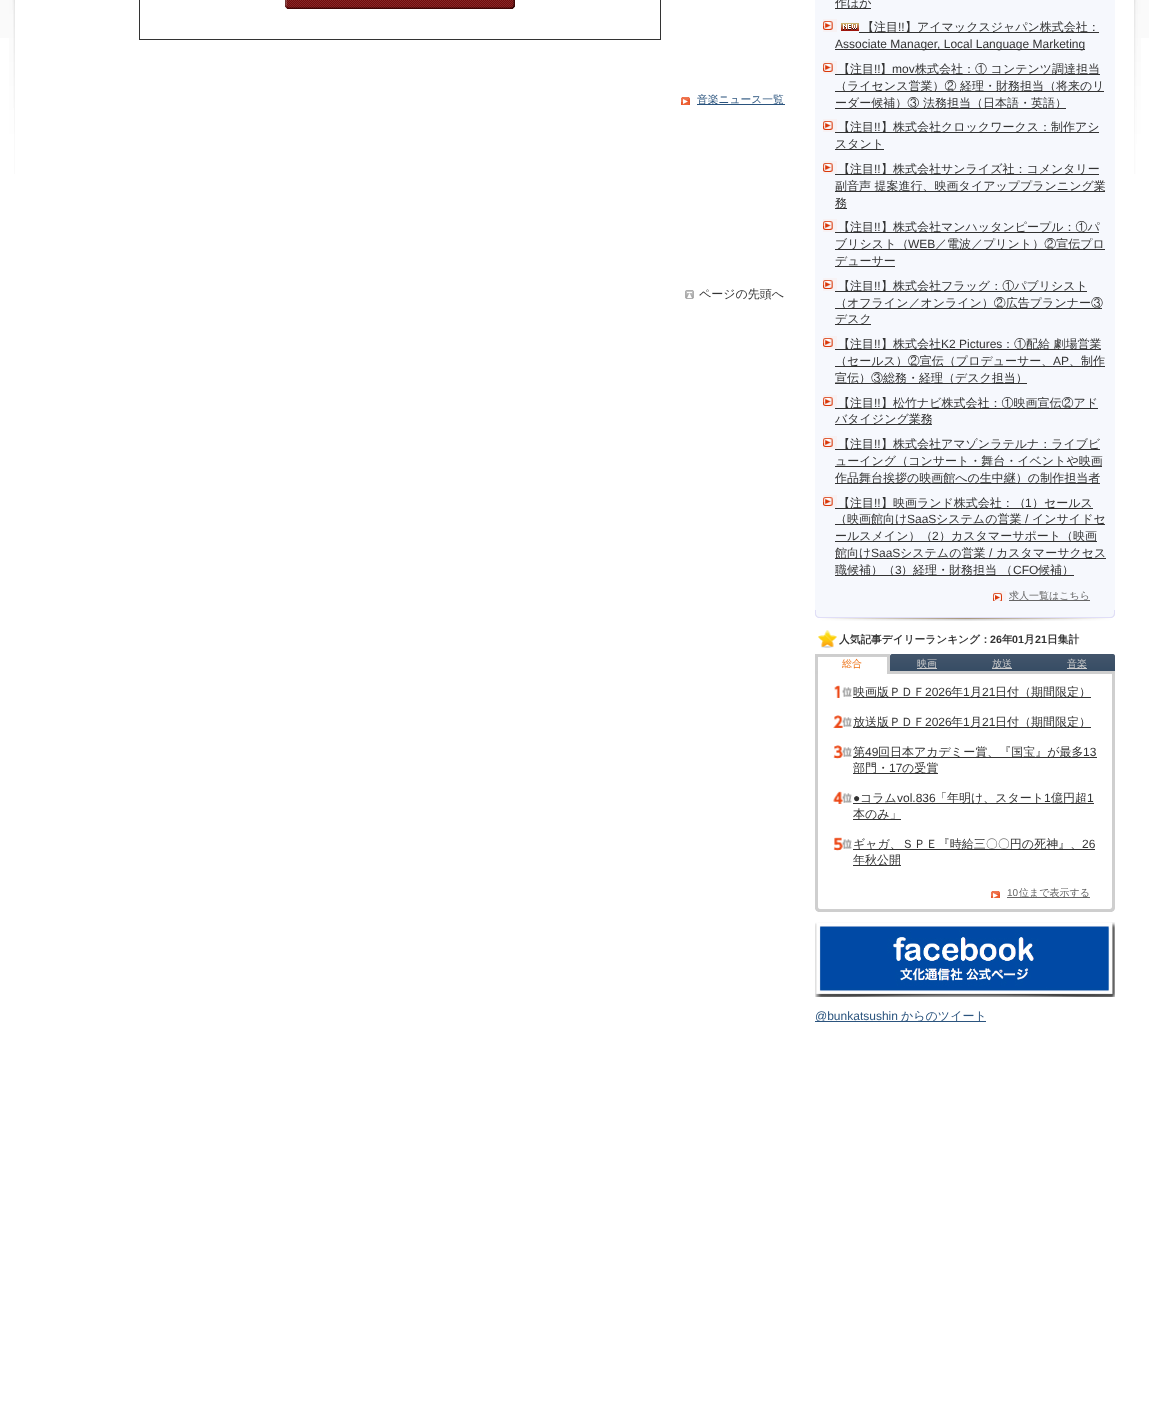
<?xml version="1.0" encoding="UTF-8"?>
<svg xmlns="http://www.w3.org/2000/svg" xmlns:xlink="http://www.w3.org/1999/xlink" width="1149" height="1419">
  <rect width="100%" height="100%" fill="#ffffff" />
  <rect width="1149" height="38" fill="#fafafa" />
  <rect x="9" width="1132" height="38" fill="#ffffff" />
  <image x="9" y="0" width="6" height="174" xlink:href="image1.png" />
  <rect x="139.5" y="-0.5" width="521" height="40" fill="none" stroke="#333333" />
  <image x="285" y="0" width="230" height="9" xlink:href="image2.png" />
  <image x="681" y="97" width="9" height="8" xlink:href="image3.png" />
  <rect x="697" y="104" width="88" height="1" fill="#2b547e" />
  <image x="685" y="290" width="9" height="9" xlink:href="image4.png" />
  <rect x="815" width="300" height="610" fill="#f6f8fd" />
  <rect x="835" y="8" width="36" height="1" fill="#333333" />
  <image x="823" y="19" width="14" height="13" xlink:href="image5.png" />
  <image x="841" y="23" width="18" height="8" xlink:href="image6.png" />
  <rect x="859" y="32" width="240" height="1" fill="#333333" />
  <rect x="835" y="49" width="250" height="1" fill="#333333" />
  <image x="823" y="61" width="14" height="13" xlink:href="image5.png" />
  <rect x="835" y="74" width="265" height="1" fill="#333333" />
  <rect x="835" y="91" width="269" height="1" fill="#333333" />
  <rect x="835" y="108" width="231" height="1" fill="#333333" />
  <image x="823" y="119" width="14" height="13" xlink:href="image5.png" />
  <rect x="835" y="132" width="264" height="1" fill="#333333" />
  <rect x="835" y="149" width="49" height="1" fill="#333333" />
  <image x="823" y="161" width="14" height="13" xlink:href="image5.png" />
  <rect x="835" y="174" width="264" height="1" fill="#333333" />
  <rect x="835" y="191" width="270" height="1" fill="#333333" />
  <rect x="835" y="208" width="12" height="1" fill="#333333" />
  <image x="823" y="219" width="14" height="13" xlink:href="image5.png" />
  <rect x="835" y="232" width="264" height="1" fill="#333333" />
  <rect x="835" y="249" width="270" height="1" fill="#333333" />
  <rect x="835" y="266" width="60" height="1" fill="#333333" />
  <image x="823" y="278" width="14" height="13" xlink:href="image5.png" />
  <rect x="835" y="291" width="252" height="1" fill="#333333" />
  <rect x="835" y="308" width="267" height="1" fill="#333333" />
  <rect x="835" y="324" width="36" height="1" fill="#333333" />
  <image x="823" y="336" width="14" height="13" xlink:href="image5.png" />
  <rect x="835" y="349" width="266" height="1" fill="#333333" />
  <rect x="835" y="366" width="270" height="1" fill="#333333" />
  <rect x="835" y="383" width="192" height="1" fill="#333333" />
  <image x="823" y="395" width="14" height="13" xlink:href="image5.png" />
  <rect x="835" y="408" width="263" height="1" fill="#333333" />
  <rect x="835" y="424" width="97" height="1" fill="#333333" />
  <image x="823" y="436" width="14" height="13" xlink:href="image5.png" />
  <rect x="835" y="449" width="265" height="1" fill="#333333" />
  <rect x="835" y="466" width="267" height="1" fill="#333333" />
  <rect x="835" y="483" width="265" height="1" fill="#333333" />
  <image x="823" y="495" width="14" height="13" xlink:href="image5.png" />
  <rect x="835" y="508" width="258" height="1" fill="#333333" />
  <rect x="835" y="524" width="270" height="1" fill="#333333" />
  <rect x="835" y="541" width="262" height="1" fill="#333333" />
  <rect x="835" y="558" width="271" height="1" fill="#333333" />
  <rect x="835" y="575" width="239" height="1" fill="#333333" />
  <image x="993" y="591" width="13" height="10" xlink:href="image7.png" />
  <rect x="1009" y="600" width="81" height="1" fill="#666666" />
  <image x="815" y="610" width="300" height="11" xlink:href="image8.png" />
  <image x="818" y="630" width="19" height="18" xlink:href="image9.png" />
  <image x="815" y="654" width="75" height="20" xlink:href="image10.png" />
  <image x="890" y="654" width="75" height="20" xlink:href="image11.png" />
  <rect x="917" y="668" width="20" height="1" fill="#cccccc" />
  <image x="965" y="654" width="75" height="20" xlink:href="image12.png" />
  <rect x="992" y="668" width="20" height="1" fill="#cccccc" />
  <image x="1040" y="654" width="75" height="20" xlink:href="image13.png" />
  <rect x="1067" y="668" width="20" height="1" fill="#cccccc" />
  <image x="815" y="674" width="300" height="238" xlink:href="image14.png" />
  <image x="834" y="685" width="18" height="13" xlink:href="image15.png" />
  <rect x="853" y="697" width="238" height="1" fill="#333333" />
  <image x="833" y="715" width="19" height="13" xlink:href="image16.png" />
  <rect x="853" y="727" width="238" height="1" fill="#333333" />
  <image x="833" y="745" width="19" height="14" xlink:href="image17.png" />
  <rect x="853" y="757" width="244" height="1" fill="#333333" />
  <rect x="853" y="773" width="85" height="1" fill="#333333" />
  <image x="833" y="791" width="19" height="13" xlink:href="image18.png" />
  <rect x="853" y="803" width="241" height="1" fill="#333333" />
  <rect x="853" y="819" width="48" height="1" fill="#333333" />
  <image x="833" y="837" width="19" height="14" xlink:href="image19.png" />
  <rect x="853" y="849" width="242" height="1" fill="#333333" />
  <rect x="853" y="865" width="48" height="1" fill="#333333" />
  <image x="991" y="891" width="9" height="7" xlink:href="image20.png" />
  <rect x="1007" y="897" width="83" height="1" fill="#666666" />
  <image x="815" y="922" width="300" height="75" xlink:href="image21.png" />
  <rect x="815" y="1021" width="171" height="1" fill="#2b547e" />
  <image x="1134" y="0" width="7" height="174" xlink:href="image22.png" />
  <text x="697" y="103" style="font-family: WenQuanYi Zen Hei; font-size: 10.75px; font-weight: 500; fill: #2b547e">音楽ニュース一覧</text>
  <text x="699" y="298" style="font-family: WenQuanYi Zen Hei; font-size: 12px; font-weight: 500; fill: #333333">ページの先頭へ</text>
  <text x="835" y="7" style="font-family: WenQuanYi Zen Hei; font-size: 12px; font-weight: 500; fill: #333333">作ほか</text>
  <text x="862" y="31" style="font-family: WenQuanYi Zen Hei; font-size: 12px; font-weight: 500; fill: #333333">【注目</text>
  <text x="898" y="31" style="font-family: Liberation Sans; font-size: 12px; fill: #333333">!!</text>
  <text x="905" y="31" style="font-family: WenQuanYi Zen Hei; font-size: 12px; font-weight: 500; fill: #333333">】アイマックスジャパン株式会社：</text>
  <text x="835" y="48" style="font-family: Liberation Sans; font-size: 12px; fill: #333333">Associate Manager, Local Language Marketing</text>
  <text x="838" y="73" style="font-family: WenQuanYi Zen Hei; font-size: 12px; font-weight: 500; fill: #333333">【注目</text>
  <text x="874" y="73" style="font-family: Liberation Sans; font-size: 12px; fill: #333333">!!</text>
  <text x="880" y="73" style="font-family: WenQuanYi Zen Hei; font-size: 12px; font-weight: 500; fill: #333333">】</text>
  <text x="892" y="73" style="font-family: Liberation Sans; font-size: 12px; fill: #333333">mov</text>
  <text x="915" y="73" style="font-family: WenQuanYi Zen Hei; font-size: 12px; font-weight: 500; fill: #333333">株式会社：① コンテンツ調達担当</text>
  <text x="835" y="90" style="font-family: WenQuanYi Zen Hei; font-size: 12px; font-weight: 500; fill: #333333">（ライセンス営業）② 経理・財務担当（将来のリ</text>
  <text x="835" y="107" style="font-family: WenQuanYi Zen Hei; font-size: 12px; font-weight: 500; fill: #333333">ーダー候補）③ 法務担当（日本語・英語）</text>
  <text x="838" y="131" style="font-family: WenQuanYi Zen Hei; font-size: 12px; font-weight: 500; fill: #333333">【注目</text>
  <text x="874" y="131" style="font-family: Liberation Sans; font-size: 12px; fill: #333333">!!</text>
  <text x="881" y="131" style="font-family: WenQuanYi Zen Hei; font-size: 12px; font-weight: 500; fill: #333333">】株式会社クロックワークス：制作アシ</text>
  <text x="835" y="148" style="font-family: WenQuanYi Zen Hei; font-size: 12px; font-weight: 500; fill: #333333">スタント</text>
  <text x="838" y="173" style="font-family: WenQuanYi Zen Hei; font-size: 12px; font-weight: 500; fill: #333333">【注目</text>
  <text x="874" y="173" style="font-family: Liberation Sans; font-size: 12px; fill: #333333">!!</text>
  <text x="881" y="173" style="font-family: WenQuanYi Zen Hei; font-size: 12px; font-weight: 500; fill: #333333">】株式会社サンライズ社：コメンタリー</text>
  <text x="835" y="190" style="font-family: WenQuanYi Zen Hei; font-size: 12px; font-weight: 500; fill: #333333">副音声 提案進行、映画タイアッププランニング業</text>
  <text x="835" y="207" style="font-family: WenQuanYi Zen Hei; font-size: 12px; font-weight: 500; fill: #333333">務</text>
  <text x="838" y="231" style="font-family: WenQuanYi Zen Hei; font-size: 12px; font-weight: 500; fill: #333333">【注目</text>
  <text x="874" y="231" style="font-family: Liberation Sans; font-size: 12px; fill: #333333">!!</text>
  <text x="881" y="231" style="font-family: WenQuanYi Zen Hei; font-size: 12px; font-weight: 500; fill: #333333">】株式会社マンハッタンピープル：①パ</text>
  <text x="835" y="248" style="font-family: WenQuanYi Zen Hei; font-size: 12px; font-weight: 500; fill: #333333">ブリシスト（</text>
  <text x="908" y="248" style="font-family: Liberation Sans; font-size: 12px; fill: #333333">WEB</text>
  <text x="935" y="248" style="font-family: WenQuanYi Zen Hei; font-size: 12px; font-weight: 500; fill: #333333">／電波／プリント）②宣伝プロ</text>
  <text x="835" y="265" style="font-family: WenQuanYi Zen Hei; font-size: 12px; font-weight: 500; fill: #333333">デューサー</text>
  <text x="838" y="290" style="font-family: WenQuanYi Zen Hei; font-size: 12px; font-weight: 500; fill: #333333">【注目</text>
  <text x="874" y="290" style="font-family: Liberation Sans; font-size: 12px; fill: #333333">!!</text>
  <text x="881" y="290" style="font-family: WenQuanYi Zen Hei; font-size: 12px; font-weight: 500; fill: #333333">】株式会社フラッグ：①パブリシスト</text>
  <text x="835" y="307" style="font-family: WenQuanYi Zen Hei; font-size: 12px; font-weight: 500; fill: #333333">（オフライン／オンライン）②広告プランナー③</text>
  <text x="835" y="323" style="font-family: WenQuanYi Zen Hei; font-size: 12px; font-weight: 500; fill: #333333">デスク</text>
  <text x="838" y="348" style="font-family: WenQuanYi Zen Hei; font-size: 12px; font-weight: 500; fill: #333333">【注目</text>
  <text x="874" y="348" style="font-family: Liberation Sans; font-size: 12px; fill: #333333">!!</text>
  <text x="881" y="348" style="font-family: WenQuanYi Zen Hei; font-size: 12px; font-weight: 500; fill: #333333">】株式会社</text>
  <text x="941" y="348" style="font-family: Liberation Sans; font-size: 12px; fill: #333333">K2 Pictures</text>
  <text x="1002" y="348" style="font-family: WenQuanYi Zen Hei; font-size: 12px; font-weight: 500; fill: #333333">：①配給 劇場営業</text>
  <text x="835" y="365" style="font-family: WenQuanYi Zen Hei; font-size: 12px; font-weight: 500; fill: #333333">（セールス）②宣伝（プロデューサー、</text>
  <text x="1053" y="365" style="font-family: Liberation Sans; font-size: 12px; fill: #333333">AP</text>
  <text x="1069" y="365" style="font-family: WenQuanYi Zen Hei; font-size: 12px; font-weight: 500; fill: #333333">、制作</text>
  <text x="835" y="382" style="font-family: WenQuanYi Zen Hei; font-size: 12px; font-weight: 500; fill: #333333">宣伝）③総務・経理（デスク担当）</text>
  <text x="838" y="407" style="font-family: WenQuanYi Zen Hei; font-size: 12px; font-weight: 500; fill: #333333">【注目</text>
  <text x="874" y="407" style="font-family: Liberation Sans; font-size: 12px; fill: #333333">!!</text>
  <text x="881" y="407" style="font-family: WenQuanYi Zen Hei; font-size: 12px; font-weight: 500; fill: #333333">】松竹ナビ株式会社：①映画宣伝②アド</text>
  <text x="835" y="423" style="font-family: WenQuanYi Zen Hei; font-size: 12px; font-weight: 500; fill: #333333">バタイジング業務</text>
  <text x="838" y="448" style="font-family: WenQuanYi Zen Hei; font-size: 12px; font-weight: 500; fill: #333333">【注目</text>
  <text x="874" y="448" style="font-family: Liberation Sans; font-size: 12px; fill: #333333">!!</text>
  <text x="881" y="448" style="font-family: WenQuanYi Zen Hei; font-size: 12px; font-weight: 500; fill: #333333">】株式会社アマゾンラテルナ：ライブビ</text>
  <text x="835" y="465" style="font-family: WenQuanYi Zen Hei; font-size: 12px; font-weight: 500; fill: #333333">ューイング（コンサート・舞台・イベントや映画</text>
  <text x="835" y="482" style="font-family: WenQuanYi Zen Hei; font-size: 12px; font-weight: 500; fill: #333333">作品舞台挨拶の映画館への生中継）の制作担当者</text>
  <text x="838" y="507" style="font-family: WenQuanYi Zen Hei; font-size: 12px; font-weight: 500; fill: #333333">【注目</text>
  <text x="874" y="507" style="font-family: Liberation Sans; font-size: 12px; fill: #333333">!!</text>
  <text x="881" y="507" style="font-family: WenQuanYi Zen Hei; font-size: 12px; font-weight: 500; fill: #333333">】映画ランド株式会社：（</text>
  <text x="1025" y="507" style="font-family: Liberation Sans; font-size: 12px; fill: #333333">1</text>
  <text x="1032" y="507" style="font-family: WenQuanYi Zen Hei; font-size: 12px; font-weight: 500; fill: #333333">）セールス</text>
  <text x="835" y="523" style="font-family: WenQuanYi Zen Hei; font-size: 12px; font-weight: 500; fill: #333333">（映画館向け</text>
  <text x="907" y="523" style="font-family: Liberation Sans; font-size: 12px; fill: #333333">SaaS</text>
  <text x="936" y="523" style="font-family: WenQuanYi Zen Hei; font-size: 12px; font-weight: 500; fill: #333333">システムの営業</text>
  <text x="1025" y="523" style="font-family: Liberation Sans; font-size: 12px; fill: #333333">/</text>
  <text x="1032" y="523" style="font-family: WenQuanYi Zen Hei; font-size: 12px; font-weight: 500; fill: #333333">インサイドセ</text>
  <text x="835" y="540" style="font-family: WenQuanYi Zen Hei; font-size: 12px; font-weight: 500; fill: #333333">ールスメイン）（</text>
  <text x="932" y="540" style="font-family: Liberation Sans; font-size: 12px; fill: #333333">2</text>
  <text x="939" y="540" style="font-family: WenQuanYi Zen Hei; font-size: 12px; font-weight: 500; fill: #333333">）カスタマーサポート（映画</text>
  <text x="835" y="557" style="font-family: WenQuanYi Zen Hei; font-size: 12px; font-weight: 500; fill: #333333">館向け</text>
  <text x="871" y="557" style="font-family: Liberation Sans; font-size: 12px; fill: #333333">SaaS</text>
  <text x="900" y="557" style="font-family: WenQuanYi Zen Hei; font-size: 12px; font-weight: 500; fill: #333333">システムの営業</text>
  <text x="989" y="557" style="font-family: Liberation Sans; font-size: 12px; fill: #333333">/</text>
  <text x="996" y="557" style="font-family: WenQuanYi Zen Hei; font-size: 12px; font-weight: 500; fill: #333333">カスタマーサクセス</text>
  <text x="835" y="574" style="font-family: WenQuanYi Zen Hei; font-size: 12px; font-weight: 500; fill: #333333">職候補）（</text>
  <text x="895" y="574" style="font-family: Liberation Sans; font-size: 12px; fill: #333333">3</text>
  <text x="901" y="574" style="font-family: WenQuanYi Zen Hei; font-size: 12px; font-weight: 500; fill: #333333">）経理・財務担当 （</text>
  <text x="1013" y="574" style="font-family: Liberation Sans; font-size: 12px; fill: #333333">CFO</text>
  <text x="1038" y="574" style="font-family: WenQuanYi Zen Hei; font-size: 12px; font-weight: 500; fill: #333333">候補）</text>
  <text x="1009" y="599" style="font-family: WenQuanYi Zen Hei; font-size: 10px; font-weight: 500; fill: #666666">求人一覧はこちら</text>
  <text x="839" y="643" style="font-family: WenQuanYi Zen Hei; font-size: 10.7px; font-weight: bold; fill: #333333">人気記事デイリーランキング：</text>
  <text x="990" y="643" style="font-family: Liberation Sans; font-size: 10.7px; font-weight: bold; fill: #333333">26</text>
  <text x="1002" y="643" style="font-family: WenQuanYi Zen Hei; font-size: 10.7px; font-weight: bold; fill: #333333">年</text>
  <text x="1012" y="643" style="font-family: Liberation Sans; font-size: 10.7px; font-weight: bold; fill: #333333">01</text>
  <text x="1024" y="643" style="font-family: WenQuanYi Zen Hei; font-size: 10.7px; font-weight: bold; fill: #333333">月</text>
  <text x="1035" y="643" style="font-family: Liberation Sans; font-size: 10.7px; font-weight: bold; fill: #333333">21</text>
  <text x="1047" y="643" style="font-family: WenQuanYi Zen Hei; font-size: 10.7px; font-weight: bold; fill: #333333">日集計</text>
  <text x="842" y="667" style="font-family: WenQuanYi Zen Hei; font-size: 10px; font-weight: 500; fill: #ed7216">総合</text>
  <text x="917" y="667" style="font-family: WenQuanYi Zen Hei; font-size: 10px; font-weight: 500; fill: #cccccc">映画</text>
  <text x="992" y="667" style="font-family: WenQuanYi Zen Hei; font-size: 10px; font-weight: 500; fill: #cccccc">放送</text>
  <text x="1067" y="667" style="font-family: WenQuanYi Zen Hei; font-size: 10px; font-weight: 500; fill: #cccccc">音楽</text>
  <text x="853" y="696" style="font-family: WenQuanYi Zen Hei; font-size: 12px; font-weight: 500; fill: #333333">映画版ＰＤＦ</text>
  <text x="925" y="696" style="font-family: Liberation Sans; font-size: 12px; fill: #333333">2026</text>
  <text x="951" y="696" style="font-family: WenQuanYi Zen Hei; font-size: 12px; font-weight: 500; fill: #333333">年</text>
  <text x="963" y="696" style="font-family: Liberation Sans; font-size: 12px; fill: #333333">1</text>
  <text x="970" y="696" style="font-family: WenQuanYi Zen Hei; font-size: 12px; font-weight: 500; fill: #333333">月</text>
  <text x="982" y="696" style="font-family: Liberation Sans; font-size: 12px; fill: #333333">21</text>
  <text x="995" y="696" style="font-family: WenQuanYi Zen Hei; font-size: 12px; font-weight: 500; fill: #333333">日付（期間限定）</text>
  <text x="853" y="726" style="font-family: WenQuanYi Zen Hei; font-size: 12px; font-weight: 500; fill: #333333">放送版ＰＤＦ</text>
  <text x="925" y="726" style="font-family: Liberation Sans; font-size: 12px; fill: #333333">2026</text>
  <text x="951" y="726" style="font-family: WenQuanYi Zen Hei; font-size: 12px; font-weight: 500; fill: #333333">年</text>
  <text x="963" y="726" style="font-family: Liberation Sans; font-size: 12px; fill: #333333">1</text>
  <text x="970" y="726" style="font-family: WenQuanYi Zen Hei; font-size: 12px; font-weight: 500; fill: #333333">月</text>
  <text x="982" y="726" style="font-family: Liberation Sans; font-size: 12px; fill: #333333">21</text>
  <text x="995" y="726" style="font-family: WenQuanYi Zen Hei; font-size: 12px; font-weight: 500; fill: #333333">日付（期間限定）</text>
  <text x="853" y="756" style="font-family: WenQuanYi Zen Hei; font-size: 12px; font-weight: 500; fill: #333333">第</text>
  <text x="865" y="756" style="font-family: Liberation Sans; font-size: 12px; fill: #333333">49</text>
  <text x="878" y="756" style="font-family: WenQuanYi Zen Hei; font-size: 12px; font-weight: 500; fill: #333333">回日本アカデミー賞、『国宝』が最多</text>
  <text x="1083" y="756" style="font-family: Liberation Sans; font-size: 12px; fill: #333333">13</text>
  <text x="853" y="772" style="font-family: WenQuanYi Zen Hei; font-size: 12px; font-weight: 500; fill: #333333">部門・</text>
  <text x="889" y="772" style="font-family: Liberation Sans; font-size: 12px; fill: #333333">17</text>
  <text x="902" y="772" style="font-family: WenQuanYi Zen Hei; font-size: 12px; font-weight: 500; fill: #333333">の受賞</text>
  <text x="853" y="802" style="font-family: Liberation Sans; font-size: 12px; fill: #333333">●</text>
  <text x="860" y="802" style="font-family: WenQuanYi Zen Hei; font-size: 12px; font-weight: 500; fill: #333333">コラム</text>
  <text x="897" y="802" style="font-family: Liberation Sans; font-size: 12px; fill: #333333">vol.836</text>
  <text x="935" y="802" style="font-family: WenQuanYi Zen Hei; font-size: 12px; font-weight: 500; fill: #333333">「年明け、スタート</text>
  <text x="1044" y="802" style="font-family: Liberation Sans; font-size: 12px; fill: #333333">1</text>
  <text x="1051" y="802" style="font-family: WenQuanYi Zen Hei; font-size: 12px; font-weight: 500; fill: #333333">億円超</text>
  <text x="1087" y="802" style="font-family: Liberation Sans; font-size: 12px; fill: #333333">1</text>
  <text x="853" y="818" style="font-family: WenQuanYi Zen Hei; font-size: 12px; font-weight: 500; fill: #333333">本のみ」</text>
  <text x="853" y="848" style="font-family: WenQuanYi Zen Hei; font-size: 12px; font-weight: 500; fill: #333333">ギャガ、ＳＰＥ『時給三〇〇円の死神』、</text>
  <text x="1082" y="848" style="font-family: Liberation Sans; font-size: 12px; fill: #333333">26</text>
  <text x="853" y="864" style="font-family: WenQuanYi Zen Hei; font-size: 12px; font-weight: 500; fill: #333333">年秋公開</text>
  <text x="1007" y="896" style="font-family: Liberation Sans; font-size: 10px; fill: #666666">10</text>
  <text x="1019" y="896" style="font-family: WenQuanYi Zen Hei; font-size: 10px; font-weight: 500; fill: #666666">位まで表示する</text>
  <text x="815" y="1020" style="font-family: Liberation Sans; font-size: 12px; fill: #2b547e">@bunkatsushin</text>
  <text x="901" y="1020" style="font-family: WenQuanYi Zen Hei; font-size: 12px; font-weight: 500; fill: #2b547e">からのツイート</text>
</svg>
